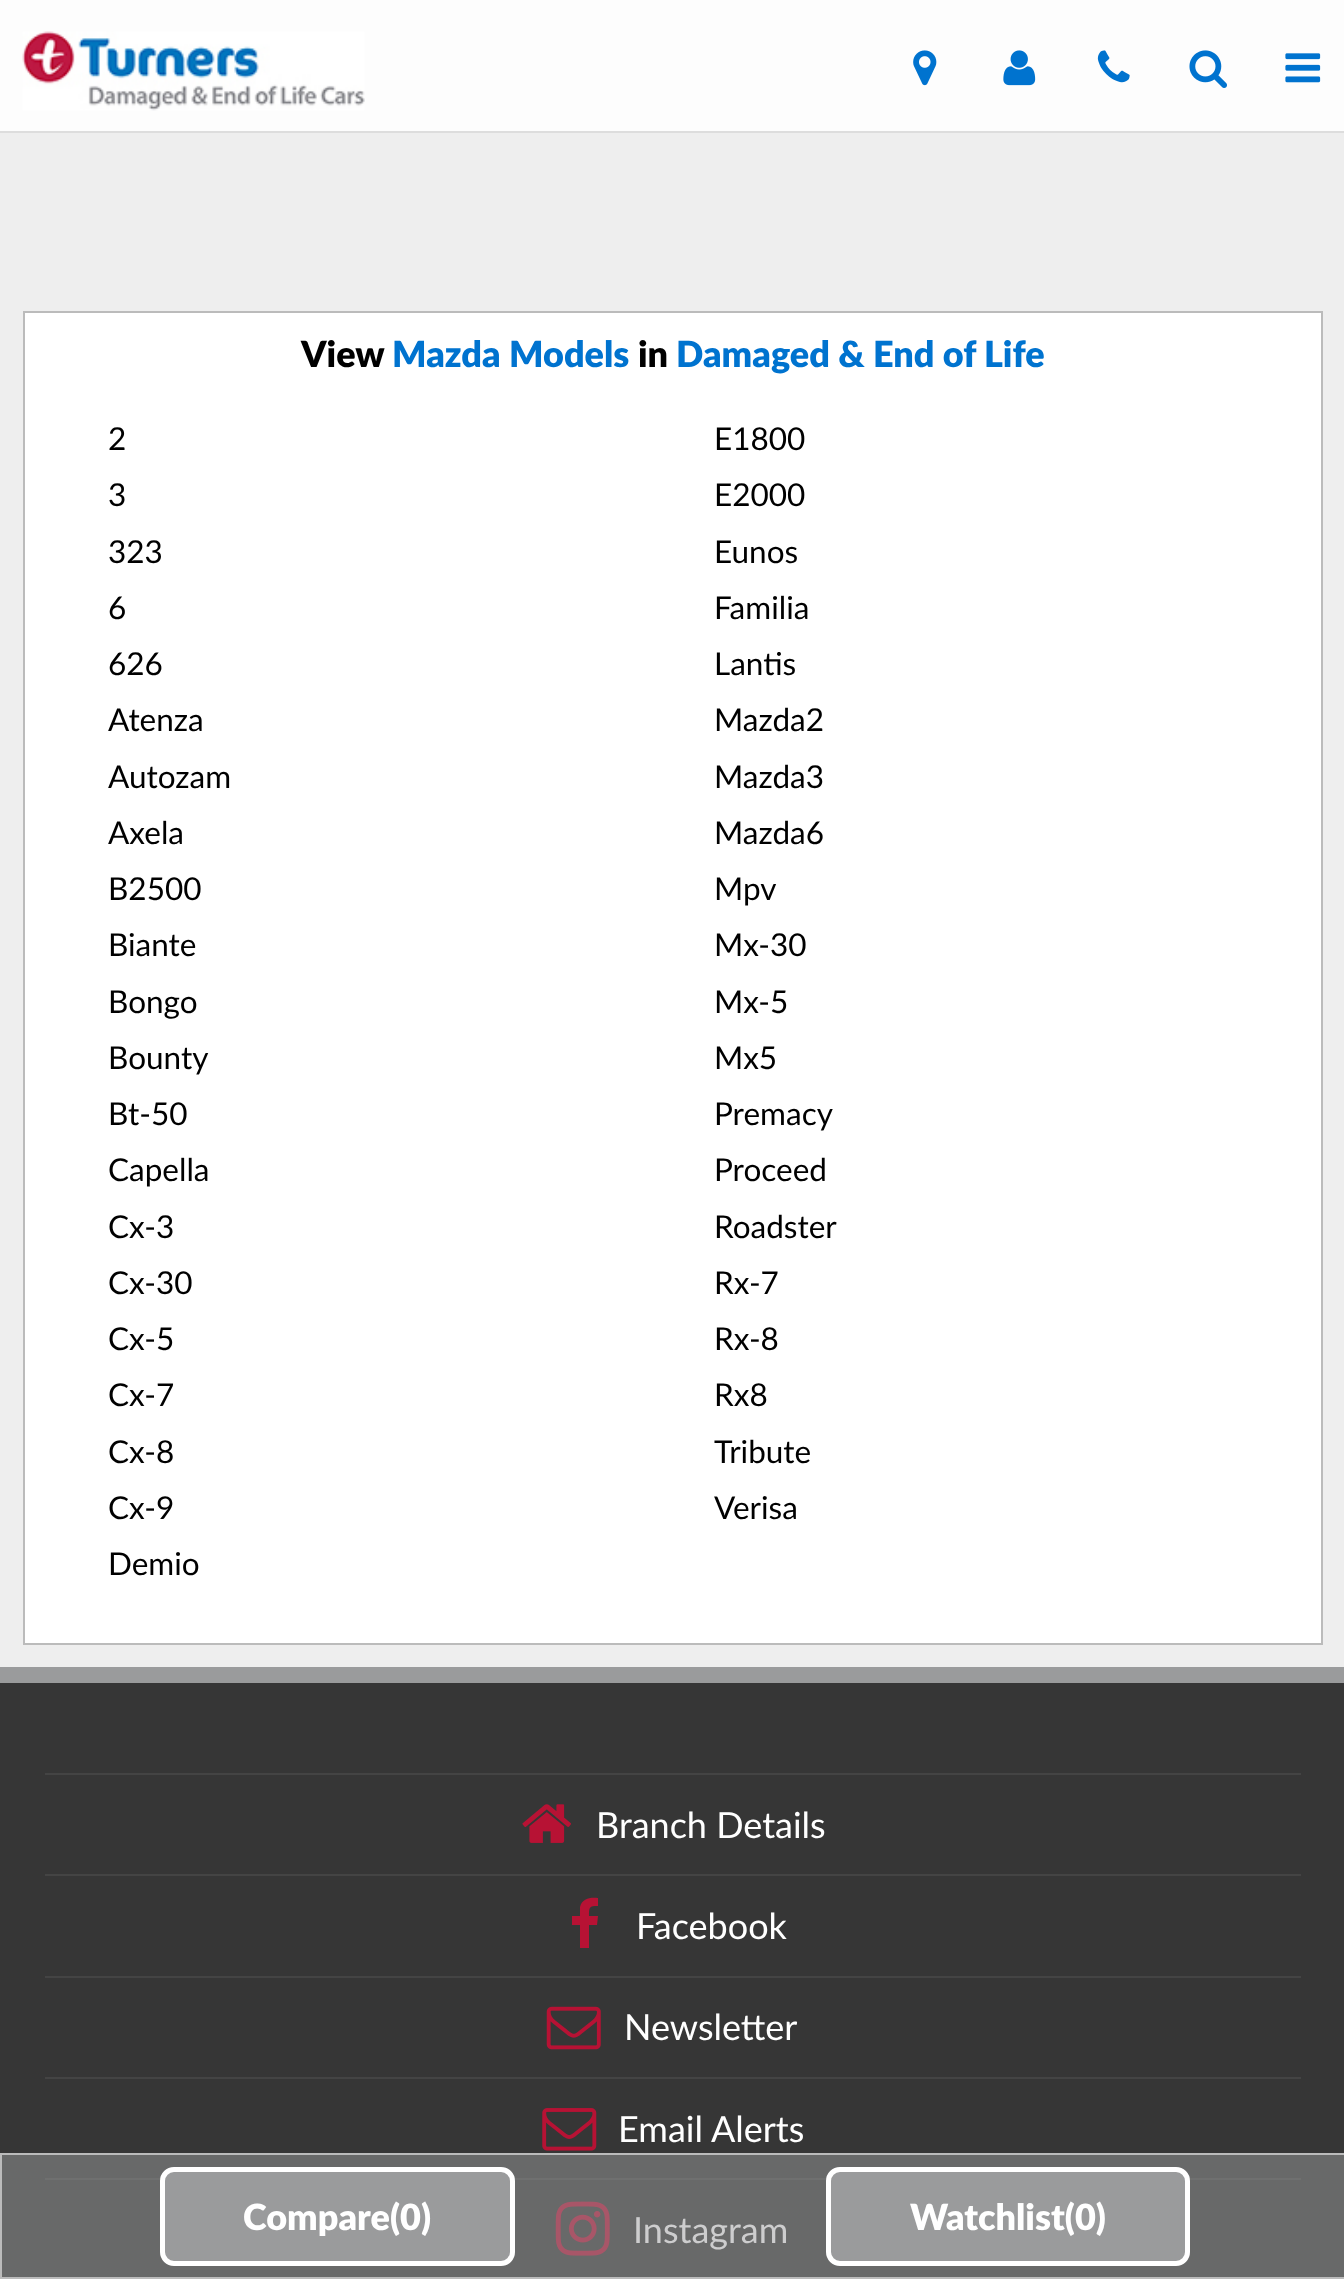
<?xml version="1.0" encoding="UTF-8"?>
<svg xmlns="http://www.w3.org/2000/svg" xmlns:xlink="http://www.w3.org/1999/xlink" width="1344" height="2279">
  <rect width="100%" height="100%" fill="#eeeeee" />
  <rect width="1344" height="131" fill="#fdfdfd" />
  <rect y="131" width="1344" height="2" fill="#dddddd" />
  <image x="22" y="31" width="343" height="80" xlink:href="image1.png" />
  <image x="913" y="50" width="24" height="36" xlink:href="image2.png" />
  <image x="1003" y="50" width="33" height="36" xlink:href="image3.png" />
  <image x="1097" y="50" width="33" height="33" xlink:href="image4.png" />
  <image x="1189" y="50" width="38" height="38" xlink:href="image5.png" />
  <image x="1285" y="53" width="36" height="30" xlink:href="image6.png" />
  <rect x="24" y="312" width="1298" height="1332" fill="#ffffff" stroke="#bbbbbb" stroke-width="2" />
  <rect x="2" y="2155" width="1342" height="122" fill="#686969" />
  <rect x="45" y="2178" width="1256" height="2" fill="#6f7070" />
  <image x="555" y="2201" width="55" height="55" xlink:href="image10.png" />
  <rect x="1" y="2154" width="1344" height="124" fill="none" stroke="#bbbbbb" stroke-width="2" />
  <rect x="162.5" y="2169.5" width="350" height="94" rx="11.5" fill="#9a9b9c" stroke="#ffffff" stroke-width="5" />
  <rect x="828.5" y="2169.5" width="359" height="94" rx="11.5" fill="#9a9b9c" stroke="#ffffff" stroke-width="5" />
  <rect y="1667" width="1344" height="16" fill="#9a9b9c" />
  <rect y="1683" width="1344" height="470" fill="#363636" />
  <rect x="45" y="1773" width="1256" height="2" fill="#444444" />
  <image x="522" y="1804" width="49" height="39" xlink:href="image7.png" />
  <rect x="45" y="1874" width="1256" height="2" fill="#444444" />
  <path d="M 598 1898 v 8 c -9 0 -9 1 -9 10 h 9 l -1 9 h -8 v 23 h -9 v -23 h -8 v -9 h 8 v -9 c 2 -9 11 -10 18 -9 z" fill="#b71234" />
  <rect x="45" y="1976" width="1256" height="2" fill="#444444" />
  <image x="546" y="2006" width="55" height="44" xlink:href="image8.png" />
  <rect x="45" y="2077" width="1256" height="2" fill="#444444" />
  <image x="542" y="2108" width="55" height="43" xlink:href="image9.png" />
  <text x="301" y="367" style="font-family: Lato; font-size: 36px; font-weight: 900; fill: #000000">View</text>
  <text x="392" y="367" style="font-family: Lato; font-size: 36px; font-weight: 900; fill: #0073cf">Mazda Models</text>
  <text x="638" y="367" style="font-family: Lato; font-size: 36px; font-weight: 900; fill: #000000">in</text>
  <text x="676" y="367" style="font-family: Lato; font-size: 36px; font-weight: 900; fill: #0073cf">Damaged &amp; End of Life</text>
  <text x="108" y="450" style="font-family: Lato; font-size: 31.5px; fill: #000000">2</text>
  <text x="714" y="450" style="font-family: Lato; font-size: 31.5px; fill: #000000">E1800</text>
  <text x="108" y="506" style="font-family: Lato; font-size: 31.5px; fill: #000000">3</text>
  <text x="714" y="506" style="font-family: Lato; font-size: 31.5px; fill: #000000">E2000</text>
  <text x="108" y="563" style="font-family: Lato; font-size: 31.5px; fill: #000000">323</text>
  <text x="714" y="563" style="font-family: Lato; font-size: 31.5px; fill: #000000">Eunos</text>
  <text x="108" y="619" style="font-family: Lato; font-size: 31.5px; fill: #000000">6</text>
  <text x="714" y="619" style="font-family: Lato; font-size: 31.5px; fill: #000000">Familia</text>
  <text x="108" y="675" style="font-family: Lato; font-size: 31.5px; fill: #000000">626</text>
  <text x="714" y="675" style="font-family: Lato; font-size: 31.5px; fill: #000000">Lantis</text>
  <text x="108" y="731" style="font-family: Lato; font-size: 31.5px; fill: #000000">Atenza</text>
  <text x="714" y="731" style="font-family: Lato; font-size: 31.5px; fill: #000000">Mazda2</text>
  <text x="108" y="788" style="font-family: Lato; font-size: 31.5px; fill: #000000">Autozam</text>
  <text x="714" y="788" style="font-family: Lato; font-size: 31.5px; fill: #000000">Mazda3</text>
  <text x="108" y="844" style="font-family: Lato; font-size: 31.5px; fill: #000000">Axela</text>
  <text x="714" y="844" style="font-family: Lato; font-size: 31.5px; fill: #000000">Mazda6</text>
  <text x="108" y="900" style="font-family: Lato; font-size: 31.5px; fill: #000000">B2500</text>
  <text x="714" y="900" style="font-family: Lato; font-size: 31.5px; fill: #000000">Mpv</text>
  <text x="108" y="956" style="font-family: Lato; font-size: 31.5px; fill: #000000">Biante</text>
  <text x="714" y="956" style="font-family: Lato; font-size: 31.5px; fill: #000000">Mx-30</text>
  <text x="108" y="1013" style="font-family: Lato; font-size: 31.5px; fill: #000000">Bongo</text>
  <text x="714" y="1013" style="font-family: Lato; font-size: 31.5px; fill: #000000">Mx-5</text>
  <text x="108" y="1069" style="font-family: Lato; font-size: 31.5px; fill: #000000">Bounty</text>
  <text x="714" y="1069" style="font-family: Lato; font-size: 31.5px; fill: #000000">Mx5</text>
  <text x="108" y="1125" style="font-family: Lato; font-size: 31.5px; fill: #000000">Bt-50</text>
  <text x="714" y="1125" style="font-family: Lato; font-size: 31.5px; fill: #000000">Premacy</text>
  <text x="108" y="1181" style="font-family: Lato; font-size: 31.5px; fill: #000000">Capella</text>
  <text x="714" y="1181" style="font-family: Lato; font-size: 31.5px; fill: #000000">Proceed</text>
  <text x="108" y="1238" style="font-family: Lato; font-size: 31.5px; fill: #000000">Cx-3</text>
  <text x="714" y="1238" style="font-family: Lato; font-size: 31.5px; fill: #000000">Roadster</text>
  <text x="108" y="1294" style="font-family: Lato; font-size: 31.5px; fill: #000000">Cx-30</text>
  <text x="714" y="1294" style="font-family: Lato; font-size: 31.5px; fill: #000000">Rx-7</text>
  <text x="108" y="1350" style="font-family: Lato; font-size: 31.5px; fill: #000000">Cx-5</text>
  <text x="714" y="1350" style="font-family: Lato; font-size: 31.5px; fill: #000000">Rx-8</text>
  <text x="108" y="1406" style="font-family: Lato; font-size: 31.5px; fill: #000000">Cx-7</text>
  <text x="714" y="1406" style="font-family: Lato; font-size: 31.5px; fill: #000000">Rx8</text>
  <text x="108" y="1463" style="font-family: Lato; font-size: 31.5px; fill: #000000">Cx-8</text>
  <text x="714" y="1463" style="font-family: Lato; font-size: 31.5px; fill: #000000">Tribute</text>
  <text x="108" y="1519" style="font-family: Lato; font-size: 31.5px; fill: #000000">Cx-9</text>
  <text x="714" y="1519" style="font-family: Lato; font-size: 31.5px; fill: #000000">Verisa</text>
  <text x="108" y="1575" style="font-family: Lato; font-size: 31.5px; fill: #000000">Demio</text>
  <text x="243" y="2230" style="font-family: Lato; font-size: 36px; font-weight: 900; fill: #ffffff">Compare(0)</text>
  <text x="910" y="2230" style="font-family: Lato; font-size: 36px; font-weight: 900; fill: #ffffff">Watchlist(0)</text>
  <text x="596" y="1838" style="font-family: Lato; font-size: 36px; fill: #ffffff">Branch Details</text>
  <text x="636" y="1939" style="font-family: Lato; font-size: 36px; fill: #ffffff">Facebook</text>
  <text x="624" y="2040" style="font-family: Lato; font-size: 36px; fill: #ffffff">Newsletter</text>
  <text x="618" y="2142" style="font-family: Lato; font-size: 36px; fill: #ffffff">Email Alerts</text>
  <text x="633" y="2243" style="font-family: Lato; font-size: 36px; fill: #cdcdce">Instagram</text>
</svg>
